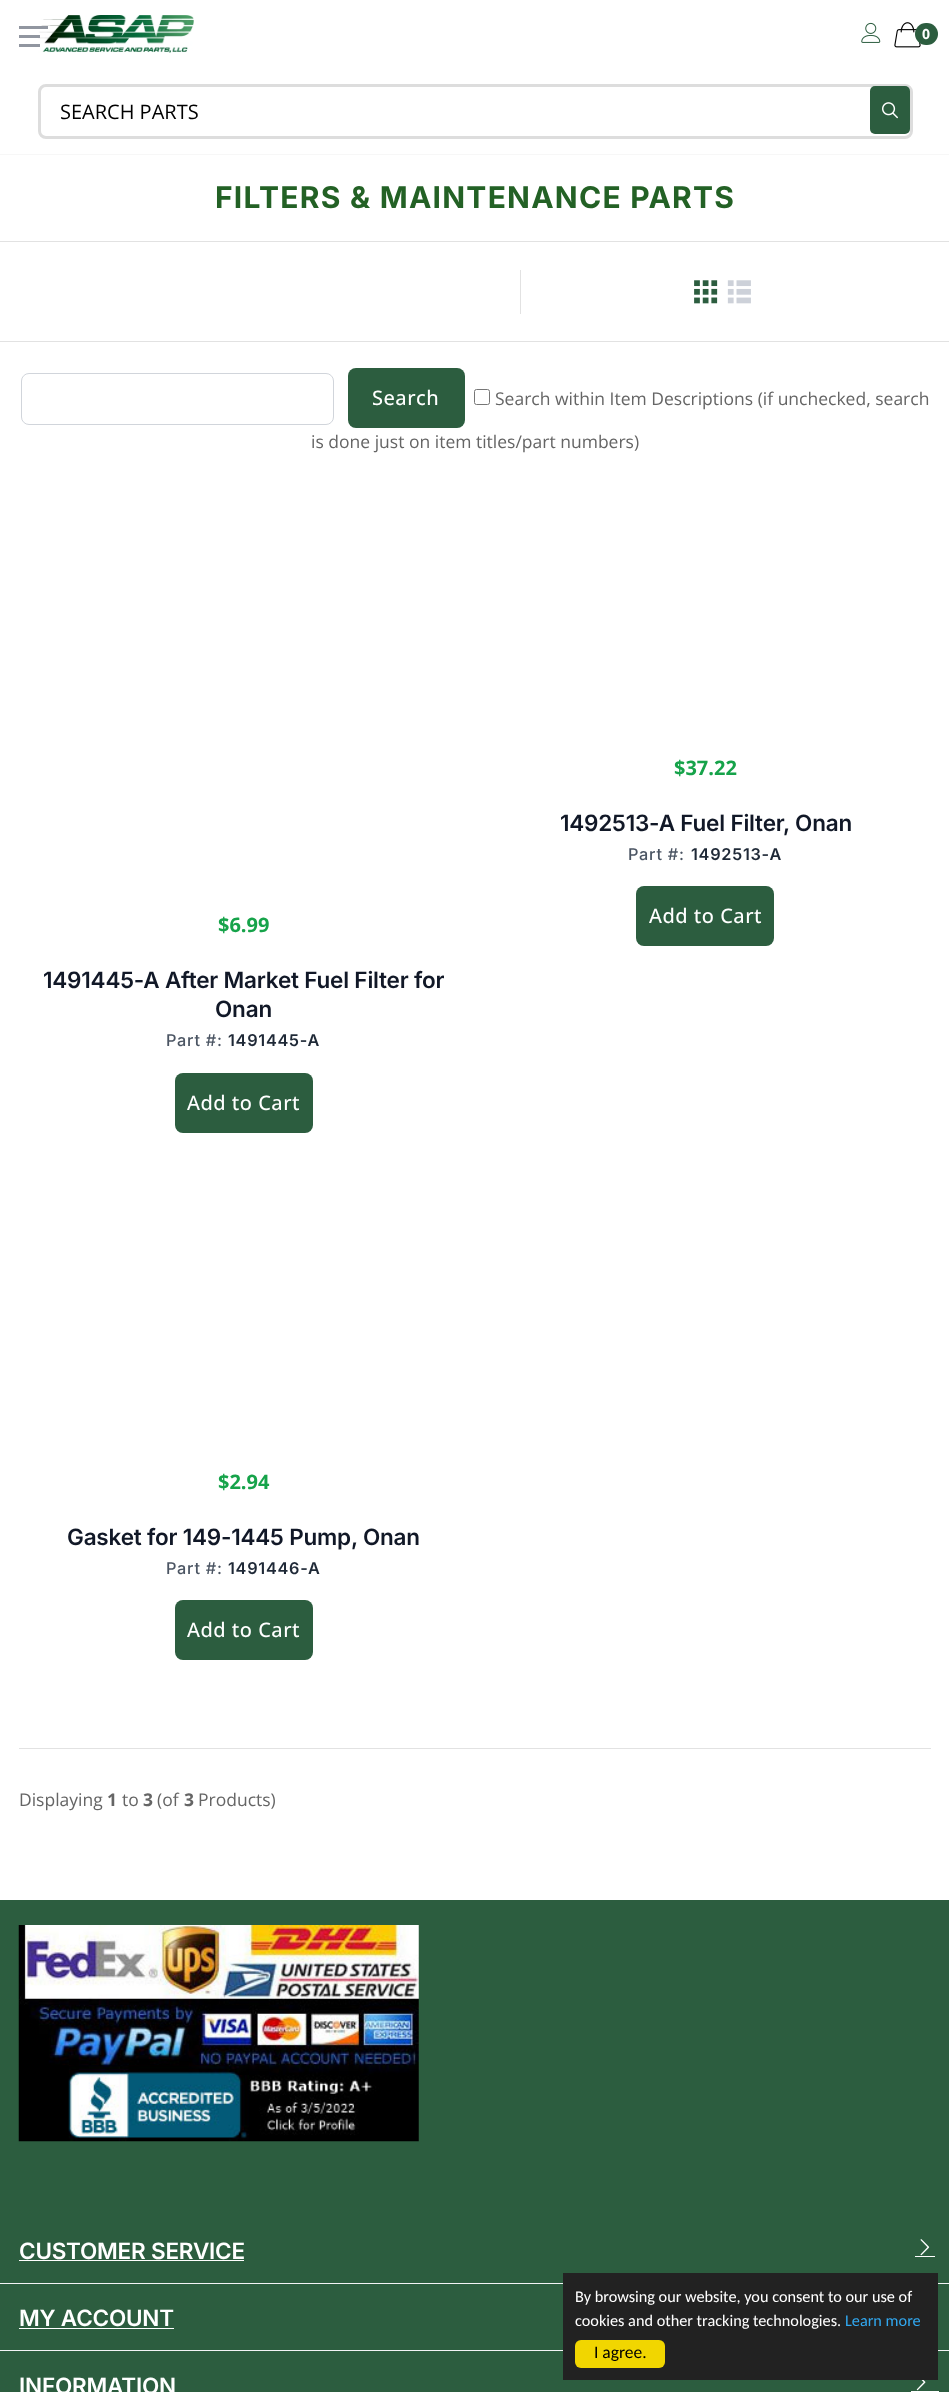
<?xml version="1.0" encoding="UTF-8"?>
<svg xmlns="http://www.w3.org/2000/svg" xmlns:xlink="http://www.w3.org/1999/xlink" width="949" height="2392">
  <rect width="100%" height="100%" fill="#ffffff" />
  <rect y="154" width="949" height="1" fill="#f7f7f7" />
  <image x="38" y="15" width="156" height="38" xlink:href="image1.png" />
  <rect x="19" y="35" width="21" height="3" fill="#9196a0" />
  <rect x="19" y="26" width="29" height="3" fill="#9196a0" />
  <rect x="19" y="44" width="21" height="3" fill="#9196a0" />
  <image x="861" y="22" width="20" height="21" xlink:href="image2.png" />
  <image x="894" y="22" width="27" height="26" xlink:href="image3.png" />
  <rect x="915" y="23" width="23" height="22" rx="11" fill="#2c5d3f" />
  <rect x="39.5" y="85.5" width="872" height="52" rx="6.5" fill="none" stroke="#dddddd" stroke-width="3" />
  <rect x="870" y="86" width="40" height="48" rx="5" fill="#2c5d3f" />
  <image x="882" y="102" width="16" height="17" xlink:href="image4.png" />
  <rect y="241" width="949" height="1" fill="#e2e2e2" />
  <rect y="341" width="949" height="1" fill="#e2e2e2" />
  <rect x="520" y="270" width="1" height="44" fill="#e2e2e2" />
  <image x="694" y="280" width="24" height="24" xlink:href="image5.png" />
  <image x="727" y="280" width="24" height="24" xlink:href="image6.png" />
  <rect x="21.5" y="373.5" width="312" height="51" rx="7.5" fill="none" stroke="#d1d5db" />
  <rect x="348" y="368" width="117" height="60" rx="8" fill="#2c5d3f" />
  <rect x="474.5" y="389.5" width="15" height="15" rx="2" fill="none" stroke="#767676" />
  <rect x="636" y="886" width="138" height="60" rx="8" fill="#2c5d3f" />
  <rect x="175" y="1073" width="138" height="60" rx="8" fill="#2c5d3f" />
  <rect x="175" y="1600" width="138" height="60" rx="8" fill="#2c5d3f" />
  <rect x="19" y="1748" width="912" height="1" fill="#e2e2e2" />
  <rect y="1900" width="949" height="492" fill="#2c5d3f" />
  <image x="18" y="1925" width="401" height="217" xlink:href="image7.png" />
  <rect y="2283" width="949" height="1" fill="#f3f4f6" />
  <rect x="19" y="2260" width="225" height="1" fill="#ffffff" />
  <image x="920" y="2239" width="10" height="17" xlink:href="image8.png" />
  <rect x="915" y="2256" width="20" height="1" fill="#ffffff" />
  <rect y="2350" width="949" height="1" fill="#f3f4f6" />
  <rect x="19" y="2328" width="155" height="1" fill="#ffffff" />
  <image x="916" y="2380" width="10" height="11" xlink:href="image9.png" />
  <rect x="911" y="2391" width="28" height="1" fill="#ffffff" />
  <rect x="563" y="2273" width="375" height="107" fill="#222222" />
  <rect x="575" y="2340" width="90" height="28" rx="6" fill="#f1d600" />
  <text x="922" y="39" style="font-family: Open Sans; font-size: 14px; font-weight: bold; fill: #ffffff">0</text>
  <text x="60" y="119" style="font-family: Open Sans; font-size: 20px; fill: #000000">SEARCH PARTS</text>
  <text x="215" y="208" style="font-family: Inter; font-size: 30px; font-weight: bold; letter-spacing: 1.25px; fill: #236125">FILTERS &amp; MAINTENANCE PARTS</text>
  <text x="372" y="405" style="font-family: Open Sans; font-size: 20px; font-weight: 500; letter-spacing: 0.5px; fill: #ffffff">Search</text>
  <text x="495" y="405" style="font-family: Open Sans; font-size: 17.5px; fill: #656565">Search within Item Descriptions (if unchecked, search</text>
  <text x="311" y="448" style="font-family: Open Sans; font-size: 17.5px; fill: #656565">is done just on item titles/part numbers)</text>
  <text x="674" y="775" style="font-family: Open Sans; font-size: 20px; font-weight: bold; fill: #16a34a">$37.22</text>
  <text x="560" y="831" style="font-family: Inter; font-size: 22.5px; font-weight: 600; letter-spacing: -0.2px; fill: #111827">1492513-A Fuel Filter, Onan</text>
  <text x="628" y="860" style="font-family: Inter; font-size: 16.25px; font-weight: 500; letter-spacing: 0.75px; fill: #4b5563">Part #:</text>
  <text x="691" y="860" style="font-family: Inter; font-size: 16.25px; font-weight: 600; letter-spacing: 0.75px; fill: #1f2937">1492513-A</text>
  <text x="649" y="923" style="font-family: Open Sans; font-size: 20px; font-weight: 500; letter-spacing: 0.5px; fill: #ffffff">Add to Cart</text>
  <text x="218" y="932" style="font-family: Open Sans; font-size: 20px; font-weight: bold; fill: #16a34a">$6.99</text>
  <text x="43" y="988" style="font-family: Inter; font-size: 22.5px; font-weight: 600; letter-spacing: -0.2px; fill: #111827">1491445-A After Market Fuel Filter for</text>
  <text x="215" y="1017" style="font-family: Inter; font-size: 22.5px; font-weight: 600; letter-spacing: -0.2px; fill: #111827">Onan</text>
  <text x="166" y="1046" style="font-family: Inter; font-size: 16.25px; font-weight: 500; letter-spacing: 0.75px; fill: #4b5563">Part #:</text>
  <text x="228" y="1046" style="font-family: Inter; font-size: 16.25px; font-weight: 600; letter-spacing: 0.75px; fill: #1f2937">1491445-A</text>
  <text x="187" y="1110" style="font-family: Open Sans; font-size: 20px; font-weight: 500; letter-spacing: 0.5px; fill: #ffffff">Add to Cart</text>
  <text x="218" y="1489" style="font-family: Open Sans; font-size: 20px; font-weight: bold; fill: #16a34a">$2.94</text>
  <text x="67" y="1545" style="font-family: Inter; font-size: 22.5px; font-weight: 600; letter-spacing: -0.2px; fill: #111827">Gasket for 149-1445 Pump, Onan</text>
  <text x="166" y="1574" style="font-family: Inter; font-size: 16.25px; font-weight: 500; letter-spacing: 0.75px; fill: #4b5563">Part #:</text>
  <text x="228" y="1574" style="font-family: Inter; font-size: 16.25px; font-weight: 600; letter-spacing: 0.75px; fill: #1f2937">1491446-A</text>
  <text x="187" y="1637" style="font-family: Open Sans; font-size: 20px; font-weight: 500; letter-spacing: 0.5px; fill: #ffffff">Add to Cart</text>
  <text x="19" y="1806" style="font-family: Open Sans; font-size: 17.5px; fill: #656565">Displaying</text>
  <text x="107" y="1806" style="font-family: Open Sans; font-size: 17.5px; font-weight: bold; fill: #656565">1</text>
  <text x="122" y="1806" style="font-family: Open Sans; font-size: 17.5px; fill: #656565">to</text>
  <text x="143" y="1806" style="font-family: Open Sans; font-size: 17.5px; font-weight: bold; fill: #656565">3</text>
  <text x="157" y="1806" style="font-family: Open Sans; font-size: 17.5px; fill: #656565">(of</text>
  <text x="184" y="1806" style="font-family: Open Sans; font-size: 17.5px; font-weight: bold; fill: #656565">3</text>
  <text x="198" y="1806" style="font-family: Open Sans; font-size: 17.5px; fill: #656565">Products)</text>
  <text x="19" y="2259" style="font-family: Inter; font-size: 22.5px; font-weight: 600; letter-spacing: -0.2px; fill: #ffffff">CUSTOMER SERVICE</text>
  <text x="19" y="2326" style="font-family: Inter; font-size: 22.5px; font-weight: 600; letter-spacing: -0.2px; fill: #ffffff">MY ACCOUNT</text>
  <text x="19" y="2394" style="font-family: Inter; font-size: 22.5px; font-weight: 600; letter-spacing: -0.2px; fill: #ffffff">INFORMATION</text>
  <text x="575" y="2302" style="font-family: Carlito; font-size: 16.25px; fill: #ffffff">By browsing our website, you consent to our use of</text>
  <text x="575" y="2326" style="font-family: Carlito; font-size: 16.25px; fill: #ffffff">cookies and other tracking technologies.</text>
  <text x="845" y="2326" style="font-family: Carlito; font-size: 16.25px; fill: #31a8f0">Learn more</text>
  <text x="594" y="2358" style="font-family: Carlito; font-size: 17.5px; fill: #000000">I agree.</text>
</svg>
